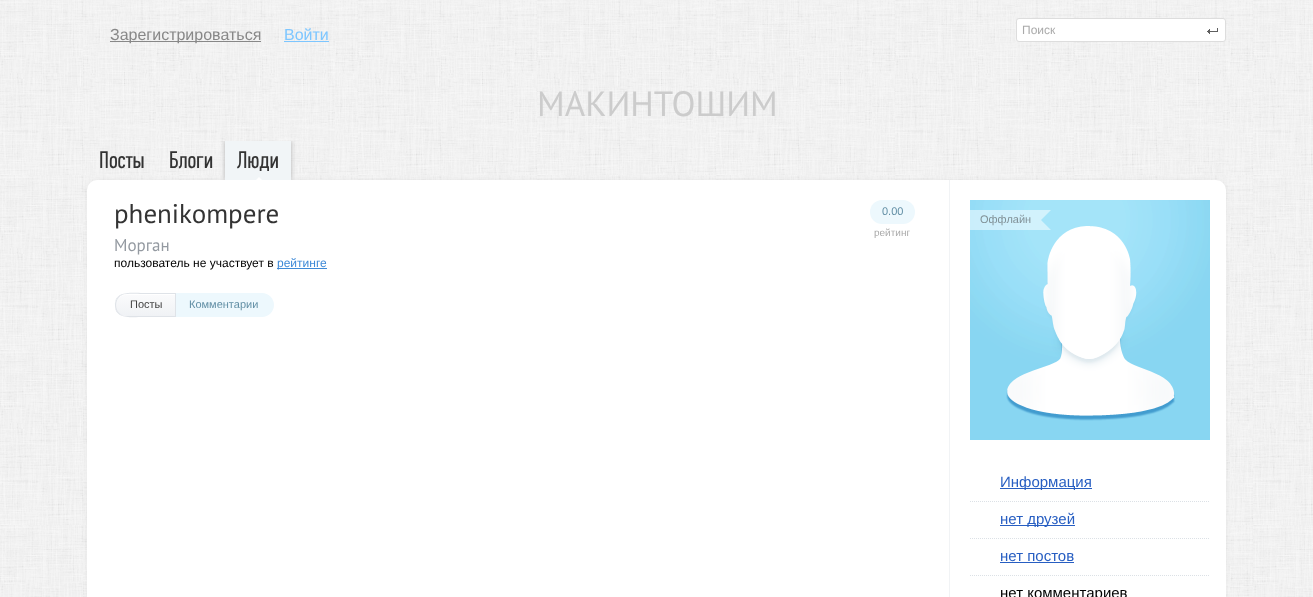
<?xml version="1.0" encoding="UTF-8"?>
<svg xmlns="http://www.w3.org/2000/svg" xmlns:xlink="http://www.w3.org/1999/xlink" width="1313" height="597">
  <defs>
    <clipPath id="clip1"><rect x="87" y="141" width="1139" height="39" /></clipPath>
    <linearGradient id="g1" gradientUnits="userSpaceOnUse" x1="145" y1="294" x2="145" y2="316"><stop offset="0" stop-color="#fbfbfc" /><stop offset="1" stop-color="#f0f2f5" /></linearGradient>
  </defs>
  <rect width="100%" height="100%" fill="#ffffff" />
  <image x="0" y="0" width="1313" height="597" xlink:href="image1.png" />
  <rect x="110" y="41" width="151" height="1" fill="#888888" />
  <rect x="284" y="41" width="45" height="1" fill="#7dc6ff" />
  <rect x="1016.5" y="18.5" width="209" height="23" rx="2.5" fill="#ffffff" stroke="#dddddd" />
  <image x="1207" y="28" width="11" height="6" xlink:href="image2.png" />
  <rect x="87" y="180" width="1139" height="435" rx="10" fill="#000000" fill-opacity="0.05" filter="blur(2.5px)" />
  <rect x="87" y="180" width="1139" height="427" rx="10" fill="#ffffff" />
  <g clip-path="url(#clip1)">
    <rect x="225" y="141" width="66" height="39" fill="#b1b1b1" filter="blur(2px)" />
  </g>
  <rect x="225" y="141" width="66" height="39" fill="#f1f5f7" />
  <path d="M 262 180 h -6 l 3 -3 z" fill="#ffffff" />
  <rect x="949" y="180" width="1" height="417" fill="#f1f3f5" />
  <rect x="870" y="200" width="45" height="24" rx="12" fill="#edf8fd" />
  <rect x="277" y="268" width="50" height="1" fill="#3f8ad7" />
  <path d="M 115 305 c -1 15 19 12 28 12 h 33 v -1 h -49 c -7 0 -12 -5 -12 -11 z m 12 -11 h 49 v -1 h -33 c -9 0 -29 -3 -28 12 c 0 -6 5 -11 12 -11 z" fill="#dfe3e8" />
  <rect x="175" y="293" width="1" height="24" fill="#dfe3e8" />
  <path d="M 126 294 h 49 v 22 h -49 c -6 0 -11 -5 -11 -11 c 0 -6 5 -11 11 -11 z" fill="url(#g1)" />
  <path d="M 126 295 h 49 v -1 h -33 c -9 0 -28 -3 -27 12 c 0 -6 5 -11 11 -11 z" fill="#ffffff" />
  <path d="M 126 294 c -14.5 0 -15 22 1 22 c -14.5 0 -14.5 -22 0 -22 z" fill="#dfe3e8" />
  <path d="M 176 293 h 86 c 6.5 0 12 5.5 12 12 c 0 6.5 -5.5 12 -12 12 h -86 z" fill="#edf8fd" />
  <image x="970" y="200" width="240" height="240" xlink:href="image3.png" />
  <rect x="970" y="210" width="61" height="20" fill="#ffffff" fill-opacity="0.5" />
  <path d="M 1031 210 h 20 l -10 10 z m 20 20 h -20 l 10 -10 z" fill="#d2f2fc" />
  <rect x="1031" y="210" width="10" height="20" fill="#d2f2fc" />
  <path d="M 970 501.5 h 240" fill="none" stroke="#dce1e6" stroke-dasharray="1 1" />
  <rect x="1000" y="488" width="92" height="1" fill="#275ec2" />
  <path d="M 970 538.5 h 240" fill="none" stroke="#dce1e6" stroke-dasharray="1 1" />
  <rect x="1000" y="525" width="75" height="1" fill="#275ec2" />
  <path d="M 970 575.5 h 240" fill="none" stroke="#dce1e6" stroke-dasharray="1 1" />
  <rect x="1000" y="562" width="74" height="1" fill="#275ec2" />
  <text x="110" y="40" style="font-family: Liberation Sans; font-size: 16px; fill: #888888">Зарегистрироваться</text>
  <text x="284" y="40" style="font-family: Liberation Sans; font-size: 16px; fill: #7dc6ff">Войти</text>
  <text x="1022" y="34" style="font-family: Liberation Sans; font-size: 12px; fill: #aaaaaa">Поиск</text>
  <text x="537" y="116" style="font-family: PT Sans; font-size: 35px; fill: #cccccc">МАКИНТОШИМ</text>
  <text x="99" y="168" style="font-family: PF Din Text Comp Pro; font-size: 24px; fill: #333333">Посты</text>
  <text x="169" y="168" style="font-family: PF Din Text Comp Pro; font-size: 24px; fill: #333333">Блоги</text>
  <text x="237" y="168" style="font-family: PF Din Text Comp Pro; font-size: 24px; fill: #333333">Люди</text>
  <text x="114" y="223" style="font-family: PT Sans; font-size: 27px; fill: #333333">phenikompere</text>
  <text x="882" y="215" style="font-family: Liberation Sans; font-size: 11px; fill: #628fa5">0.00</text>
  <text x="874" y="236" style="font-family: Liberation Sans; font-size: 10px; fill: #aaaaaa">рейтинг</text>
  <text x="114" y="251" style="font-family: PT Sans; font-size: 17px; fill: #949aa1">Морган</text>
  <text x="114" y="267" style="font-family: Liberation Sans; font-size: 12px; fill: #000000">пользователь не участвует в</text>
  <text x="277" y="267" style="font-family: Liberation Sans; font-size: 12px; fill: #3f8ad7">рейтинге</text>
  <text x="130" y="308" style="font-family: Liberation Sans; font-size: 11px; fill: #434343">Посты</text>
  <text x="189" y="308" style="font-family: Liberation Sans; font-size: 11px; fill: #628fa5">Комментарии</text>
  <text x="980" y="223" style="font-family: Liberation Sans; font-size: 11px; fill: #819197">Оффлайн</text>
  <text x="1000" y="487" style="font-family: Liberation Sans; font-size: 15px; fill: #275ec2">Информация</text>
  <text x="1000" y="524" style="font-family: Liberation Sans; font-size: 15px; fill: #275ec2">нет друзей</text>
  <text x="1000" y="561" style="font-family: Liberation Sans; font-size: 15px; fill: #275ec2">нет постов</text>
  <text x="1000" y="598" style="font-family: Liberation Sans; font-size: 15px; fill: #000000">нет комментариев</text>
</svg>
